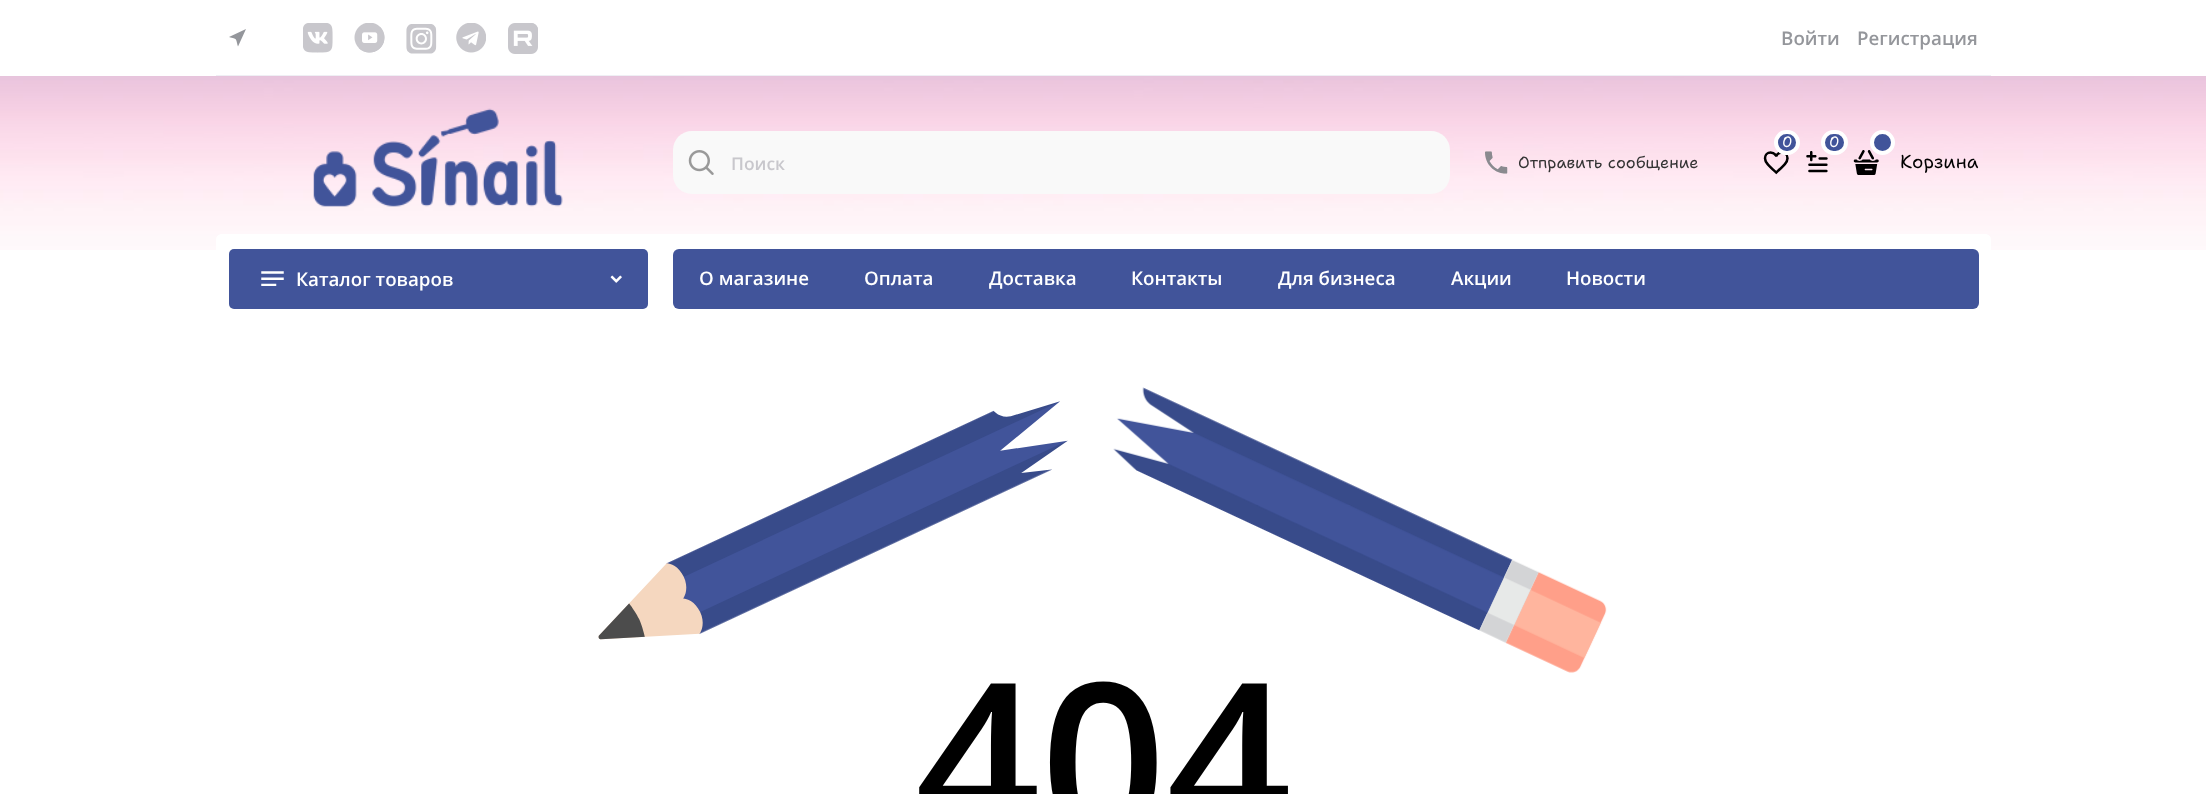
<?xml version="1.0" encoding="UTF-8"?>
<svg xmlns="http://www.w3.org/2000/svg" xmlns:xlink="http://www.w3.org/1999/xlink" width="2206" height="794">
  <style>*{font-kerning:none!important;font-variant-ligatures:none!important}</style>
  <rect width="100%" height="100%" fill="#ffffff" />
  <rect x="216" y="75" width="1775" height="1" fill="#efeff4" />
  <path d="M 229 37 c 8.5 2.5 6.5 0.5 9 9.5 l 8 -17.5 z" fill="#94969b" />
  <image x="303" y="23" width="30" height="30" xlink:href="image1.png" />
  <image x="354" y="23" width="31" height="30" xlink:href="image2.png" />
  <image x="406" y="24" width="31" height="30" xlink:href="image3.png" />
  <image x="456" y="23" width="30" height="30" xlink:href="image4.png" />
  <image x="508" y="23" width="30" height="31" xlink:href="image5.png" />
  <image x="0" y="76" width="2206" height="174" xlink:href="image15.png" />
  <image x="313" y="108" width="250" height="99" xlink:href="image6.png" />
  <rect x="673" y="131" width="777" height="63" rx="19" fill="#f9f9f9" />
  <image x="688" y="150" width="26" height="25" xlink:href="image7.png" />
  <image x="1485" y="151" width="23" height="23" xlink:href="image8.png" />
  <image x="1763" y="151" width="26" height="24" xlink:href="image9.png" />
  <rect x="1776" y="132" width="22" height="21" rx="10.5" fill="#41549a" stroke="#ffffff" stroke-width="4" />
  <image x="1806" y="151" width="22" height="22" xlink:href="image10.png" />
  <rect x="1823" y="132" width="23" height="21" rx="10.5" fill="#41549a" stroke="#ffffff" stroke-width="4" />
  <image x="1853" y="150" width="26" height="25" xlink:href="image11.png" />
  <circle cx="1882.5" cy="142.5" r="10.5" fill="#41549a" stroke="#ffffff" stroke-width="4" />
  <path d="M 222 234 h 1763 c 3.5 0 6 2.5 6 6 v 84 h -1775 v -84 c 0 -3.5 2.5 -6 6 -6 z" fill="#ffffff" />
  <rect x="229" y="249" width="419" height="60" rx="5" fill="#41549a" />
  <image x="261" y="271" width="23" height="15" xlink:href="image12.png" />
  <image x="610" y="275" width="12" height="8" xlink:href="image13.png" />
  <rect x="673" y="249" width="1306" height="60" rx="6" fill="#41549a" />
  <image x="598" y="387" width="1009" height="286" xlink:href="image14.png" />
  <text x="1781" y="45" style="font-family: Open Sans; font-size: 18.75px; font-weight: 600; fill: #94969b">Войти</text>
  <text x="1857" y="45" style="font-family: Open Sans; font-size: 18.75px; font-weight: 600; fill: #94969b">Регистрация</text>
  <text x="731" y="170" style="font-family: Open Sans; font-size: 17.5px; font-weight: 600; fill: #c8c7cc">Поиск</text>
  <text x="1518" y="168" style="font-family: Shantell Sans; font-size: 16.25px; fill: #333333">Отправить сообщение</text>
  <text x="1782" y="147" style="font-family: Shantell Sans; font-size: 15px; fill: #ffffff">0</text>
  <text x="1829" y="147" style="font-family: Shantell Sans; font-size: 15px; fill: #ffffff">0</text>
  <text x="1900" y="168" style="font-family: Shantell Sans; font-size: 18.75px; fill: #000000">Корзина</text>
  <text x="296" y="286" style="font-family: Open Sans; font-size: 18.75px; font-weight: 600; fill: #ffffff">Каталог товаров</text>
  <text x="699" y="285" style="font-family: Open Sans; font-size: 18.75px; font-weight: 600; fill: #ffffff">О магазине</text>
  <text x="864" y="285" style="font-family: Open Sans; font-size: 18.75px; font-weight: 600; fill: #ffffff">Оплата</text>
  <text x="989" y="285" style="font-family: Open Sans; font-size: 18.75px; font-weight: 600; fill: #ffffff">Доставка</text>
  <text x="1131" y="285" style="font-family: Open Sans; font-size: 18.75px; font-weight: 600; fill: #ffffff">Контакты</text>
  <text x="1278" y="285" style="font-family: Open Sans; font-size: 18.75px; font-weight: 600; fill: #ffffff">Для бизнеса</text>
  <text x="1451" y="285" style="font-family: Open Sans; font-size: 18.75px; font-weight: 600; fill: #ffffff">Акции</text>
  <text x="1566" y="285" style="font-family: Open Sans; font-size: 18.75px; font-weight: 600; fill: #ffffff">Новости</text>
  <text x="915" y="841" style="font-family: Open Sans; font-size: 220px; font-weight: 600; fill: #000000">404</text>
</svg>
